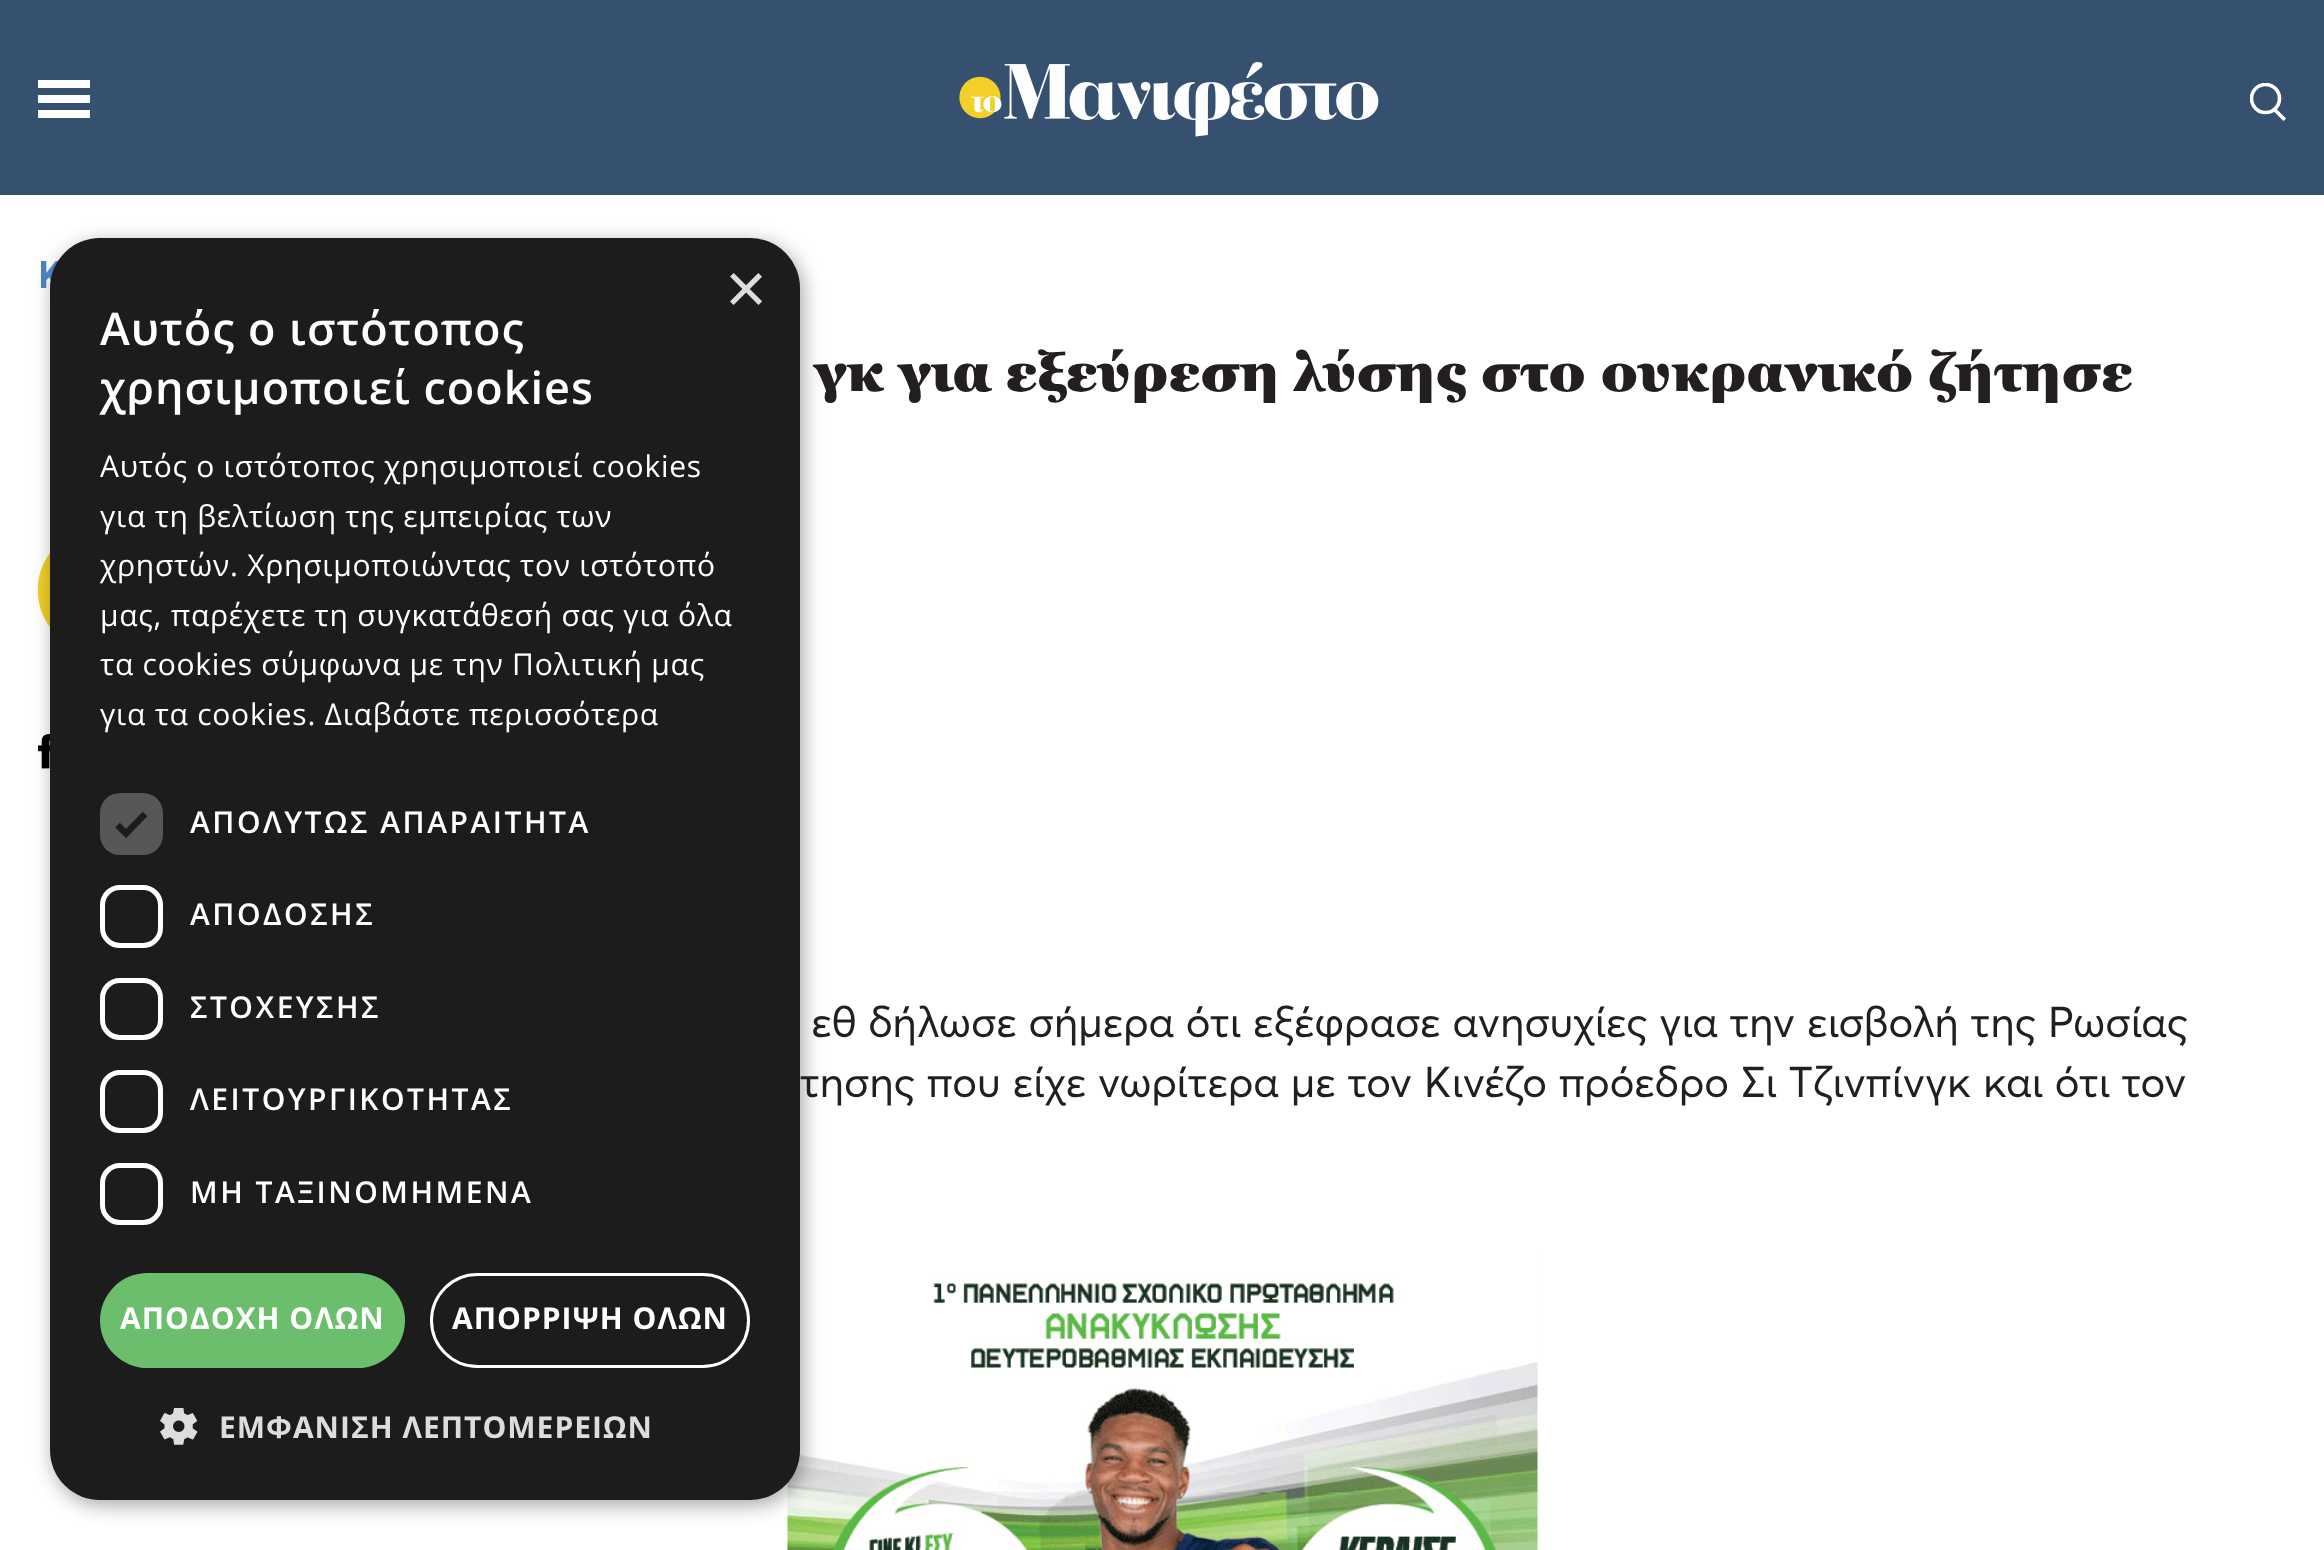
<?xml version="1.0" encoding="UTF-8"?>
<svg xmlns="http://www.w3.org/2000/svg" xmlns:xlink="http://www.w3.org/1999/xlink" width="2324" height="1550">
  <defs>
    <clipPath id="clip1"><rect x="2250" y="83" width="38" height="40" /></clipPath>
  </defs>
  <rect width="100%" height="100%" fill="#ffffff" />
  <rect width="2324" height="195" fill="#365170" />
  <rect x="38" y="80" width="52" height="8" fill="#ffffff" />
  <rect x="38" y="95" width="52" height="8" fill="#ffffff" />
  <rect x="38" y="110" width="52" height="8" fill="#ffffff" />
  <image x="959" y="62" width="420" height="75" xlink:href="image1.png" />
  <g clip-path="url(#clip1)">
    <circle cx="2265.5" cy="98.5" r="14" fill="none" stroke="#ffffff" stroke-width="3.6" />
  </g>
  <path d="M 2274.5 109.5 l 9 9" fill="none" stroke="#ffffff" stroke-width="3.6" stroke-linecap="square" />
  <image x="37" y="552" width="13" height="76" xlink:href="image2.png" />
  <image x="38" y="734" width="12" height="35" xlink:href="image3.png" />
  <rect x="1537" y="1248" width="1" height="302" fill="#f9f9f9" />
  <image x="787" y="1248" width="751" height="302" xlink:href="image4.png" />
  <rect x="53" y="243" width="750" height="1262" rx="50" fill="#000000" fill-opacity="0.35" filter="blur(10px)" />
  <text x="38" y="288" style="font-family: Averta; font-size: 38px; font-weight: bold; letter-spacing: 1px; fill: #4b80bc">Κ</text>
  <text x="814" y="391" style="font-family: Georgia; font-size: 55px; font-weight: 900; fill: #231f20">γκ για εξεύρεση λύσης στο ουκρανικό ζήτησε</text>
  <text x="811" y="1037" style="font-family: Averta; font-size: 42.5px; fill: #231f20">εθ δήλωσε σήμερα ότι εξέφρασε ανησυχίες για την εισβολή της Ρωσίας</text>
  <text x="800" y="1097" style="font-family: Averta; font-size: 42.5px; fill: #231f20">τησης που είχε νωρίτερα με τον Κινέζο πρόεδρο Σι Τζινπίνγκ και ότι τον</text>
  <rect x="50" y="238" width="750" height="1262" rx="50" fill="#1c1c1c" />
  <text x="725" y="313" style="font-family: Liberation Sans; font-size: 72px; fill: #dddddd">×</text>
  <text x="100" y="345" style="font-family: Open Sans; font-size: 45px; font-weight: 600; letter-spacing: 1px; fill: #ffffff">Αυτός ο ιστότοπος</text>
  <text x="100" y="404" style="font-family: Open Sans; font-size: 45px; font-weight: 600; letter-spacing: 1px; fill: #ffffff">χρησιμοποιεί cookies</text>
  <text x="100" y="477" style="font-family: Open Sans; font-size: 30px; letter-spacing: 0.75px; fill: #ffffff">Αυτός ο ιστότοπος χρησιμοποιεί cookies</text>
  <text x="100" y="527" style="font-family: Open Sans; font-size: 30px; letter-spacing: 0.75px; fill: #ffffff">για τη βελτίωση της εμπειρίας των</text>
  <text x="100" y="576" style="font-family: Open Sans; font-size: 30px; letter-spacing: 0.75px; fill: #ffffff">χρηστών. Χρησιμοποιώντας τον ιστότοπό</text>
  <text x="100" y="626" style="font-family: Open Sans; font-size: 30px; letter-spacing: 0.75px; fill: #ffffff">μας, παρέχετε τη συγκατάθεσή σας για όλα</text>
  <text x="100" y="675" style="font-family: Open Sans; font-size: 30px; letter-spacing: 0.75px; fill: #ffffff">τα cookies σύμφωνα με την Πολιτική μας</text>
  <text x="100" y="725" style="font-family: Open Sans; font-size: 30px; letter-spacing: 0.75px; fill: #ffffff">για τα cookies. Διαβάστε περισσότερα</text>
  <rect x="100" y="793" width="63" height="62" rx="20" fill="#575757" />
  <path d="M 117.5 825 l 8.5 8.5 l 19 -19.5" fill="none" stroke="#1c1c1c" stroke-width="6.6" />
  <text x="190" y="833" style="font-family: Open Sans; font-size: 30px; font-weight: 600; letter-spacing: 2.5px; fill: #ffffff">ΑΠΟΛΥΤΩΣ ΑΠΑΡΑΙΤΗΤΑ</text>
  <rect x="102.5" y="887.5" width="58" height="58" rx="17.5" fill="none" stroke="#ffffff" stroke-width="5" />
  <text x="190" y="925" style="font-family: Open Sans; font-size: 30px; font-weight: 600; letter-spacing: 2.5px; fill: #ffffff">ΑΠΟΔΟΣΗΣ</text>
  <rect x="102.5" y="980.5" width="58" height="57" rx="17.5" fill="none" stroke="#ffffff" stroke-width="5" />
  <text x="190" y="1018" style="font-family: Open Sans; font-size: 30px; font-weight: 600; letter-spacing: 2.5px; fill: #ffffff">ΣΤΟΧΕΥΣΗΣ</text>
  <rect x="102.5" y="1072.5" width="58" height="58" rx="17.5" fill="none" stroke="#ffffff" stroke-width="5" />
  <text x="190" y="1110" style="font-family: Open Sans; font-size: 30px; font-weight: 600; letter-spacing: 2.5px; fill: #ffffff">ΛΕΙΤΟΥΡΓΙΚΟΤΗΤΑΣ</text>
  <rect x="102.5" y="1165.5" width="58" height="57" rx="17.5" fill="none" stroke="#ffffff" stroke-width="5" />
  <text x="190" y="1203" style="font-family: Open Sans; font-size: 30px; font-weight: 600; letter-spacing: 2.5px; fill: #ffffff">ΜΗ ΤΑΞΙΝΟΜΗΜΕΝΑ</text>
  <rect x="100" y="1273" width="305" height="95" rx="47.5" fill="#6bbe6b" />
  <text x="120" y="1329" style="font-family: Open Sans; font-size: 30px; font-weight: bold; letter-spacing: 1px; fill: #ffffff">ΑΠΟΔΟΧΗ ΟΛΩΝ</text>
  <rect x="431.5" y="1274.5" width="317" height="92" rx="46" fill="none" stroke="#ffffff" stroke-width="3" />
  <text x="452" y="1329" style="font-family: Open Sans; font-size: 30px; font-weight: bold; letter-spacing: 1px; fill: #ffffff">ΑΠΟΡΡΙΨΗ ΟΛΩΝ</text>
  <image x="160" y="1408" width="38" height="37" xlink:href="image5.png" />
  <text x="219" y="1438" style="font-family: Open Sans; font-size: 30px; font-weight: bold; letter-spacing: 1px; fill: #dddddd">ΕΜΦΑΝΙΣΗ ΛΕΠΤΟΜΕΡΕΙΩΝ</text>
</svg>
